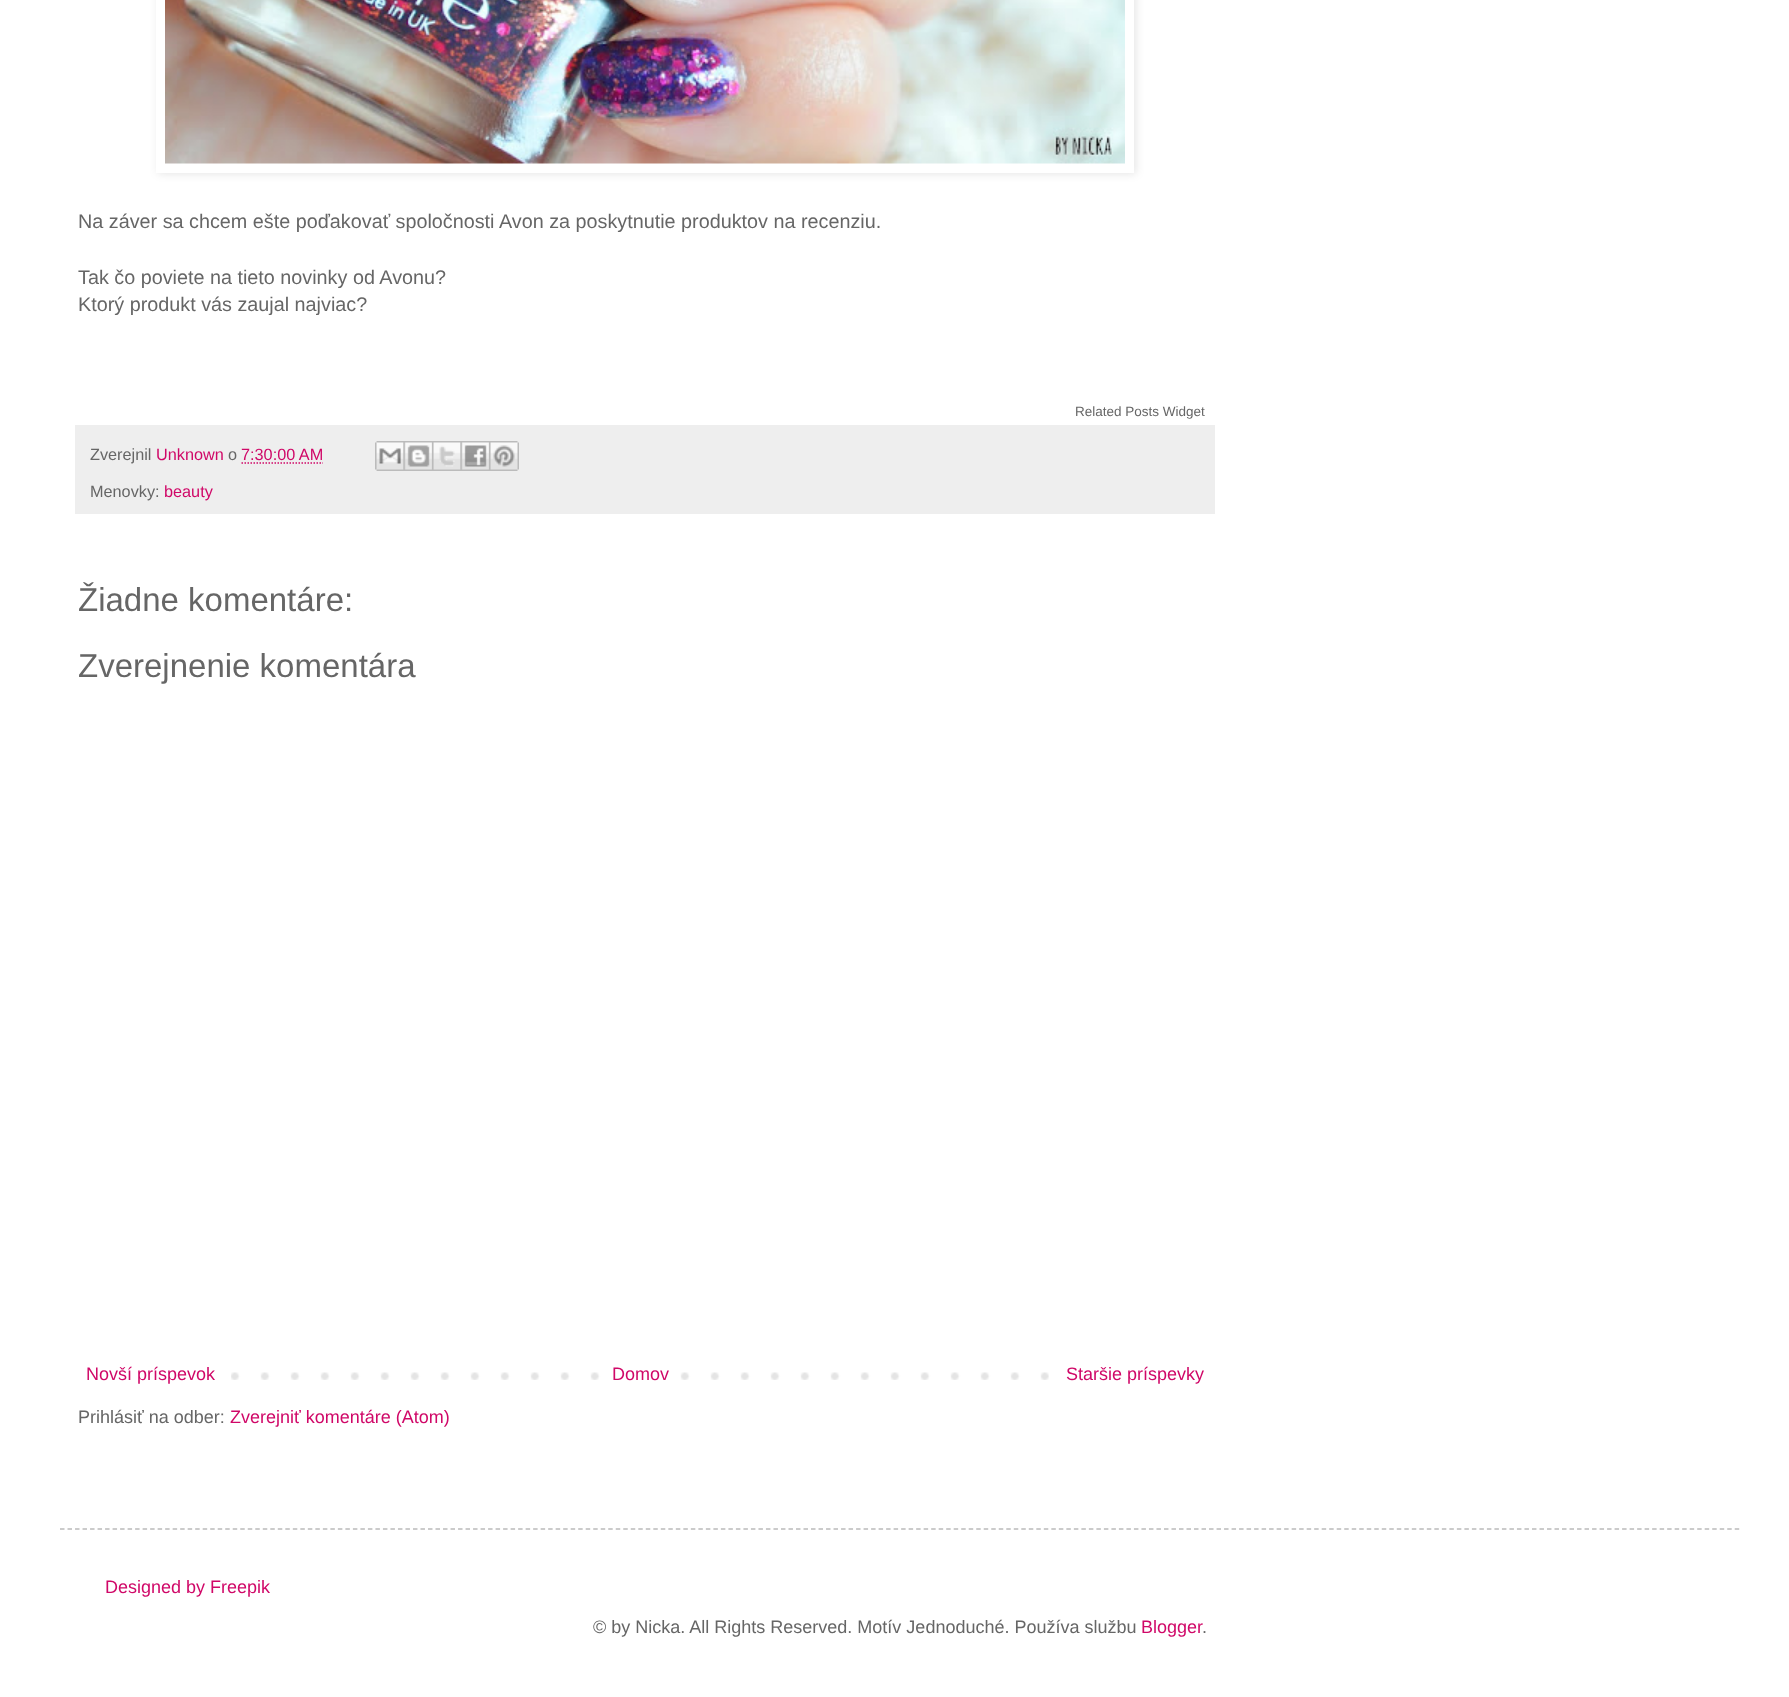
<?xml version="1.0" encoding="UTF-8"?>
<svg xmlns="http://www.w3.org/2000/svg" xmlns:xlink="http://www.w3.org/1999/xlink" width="1789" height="1697">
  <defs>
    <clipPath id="clip1"><path d="M 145 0 h 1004 v 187 h -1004 z m 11 -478 h 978 v 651 h -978 z" clip-rule="evenodd" /></clipPath>
  </defs>
  <rect width="100%" height="100%" fill="#ffffff" />
  <g clip-path="url(#clip1)">
    <rect x="158" y="-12" width="978" height="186" fill="#000000" fill-opacity="0.1" filter="blur(4px)" />
  </g>
  <image x="165" y="0" width="960" height="164" xlink:href="image1.png" />
  <rect x="75" y="425" width="1140" height="89" fill="#eeeeee" />
  <path d="M 241.5 463 h 81.5" fill="none" stroke="#d00868" stroke-width="1.5" stroke-dasharray="1.5 1.5" />
  <image x="375" y="441" width="29" height="30" xlink:href="image2.png" />
  <image x="403" y="441" width="29" height="30" xlink:href="image3.png" />
  <image x="432" y="441" width="29" height="30" xlink:href="image4.png" />
  <image x="460" y="441" width="29" height="30" xlink:href="image5.png" />
  <image x="489" y="441" width="30" height="30" xlink:href="image6.png" />
  <image x="231" y="1372" width="818" height="8" xlink:href="image7.png" />
  <rect x="620" y="1372" width="40" height="8" fill="#ffffff" />
  <path d="M 60 1529 h 1680" fill="none" stroke="#bbbbbb" stroke-width="1.5" stroke-dasharray="4.5 3.01" />
  <text x="78" y="228" style="font-family: Liberation Sans; font-size: 19.8px; fill: #666666">Na záver sa chcem ešte poďakovať spoločnosti Avon za poskytnutie produktov na recenziu.</text>
  <text x="78" y="284" style="font-family: Liberation Sans; font-size: 19.8px; fill: #666666">Tak čo poviete na tieto novinky od Avonu?</text>
  <text x="78" y="311" style="font-family: Liberation Sans; font-size: 19.8px; fill: #666666">Ktorý produkt vás zaujal najviac?</text>
  <text x="1075" y="416" style="font-family: Liberation Sans; font-size: 13.5px; fill: #666666">Related Posts Widget</text>
  <text x="90" y="460" style="font-family: Liberation Sans; font-size: 16.25px; fill: #666666">Zverejnil</text>
  <text x="156" y="460" style="font-family: Liberation Sans; font-size: 16.25px; fill: #d00868">Unknown</text>
  <text x="228" y="460" style="font-family: Liberation Sans; font-size: 16.25px; fill: #666666">o</text>
  <text x="241" y="460" style="font-family: Liberation Sans; font-size: 16.25px; fill: #d00868">7:30:00 AM</text>
  <text x="90" y="497" style="font-family: Liberation Sans; font-size: 16.25px; fill: #666666">Menovky:</text>
  <text x="164" y="497" style="font-family: Liberation Sans; font-size: 16.25px; fill: #d00868">beauty</text>
  <text x="78" y="611" style="font-family: Liberation Sans; font-size: 33px; fill: #666666">Žiadne komentáre:</text>
  <text x="78" y="677" style="font-family: Liberation Sans; font-size: 33px; fill: #666666">Zverejnenie komentára</text>
  <text x="86" y="1380" style="font-family: Liberation Sans; font-size: 18px; fill: #d00868">Novší príspevok</text>
  <text x="612" y="1380" style="font-family: Liberation Sans; font-size: 18px; fill: #d00868">Domov</text>
  <text x="1066" y="1380" style="font-family: Liberation Sans; font-size: 18px; fill: #d00868">Staršie príspevky</text>
  <text x="78" y="1423" style="font-family: Liberation Sans; font-size: 18px; fill: #666666">Prihlásiť na odber:</text>
  <text x="230" y="1423" style="font-family: Liberation Sans; font-size: 18px; fill: #d00868">Zverejniť komentáre (Atom)</text>
  <text x="105" y="1593" style="font-family: Liberation Sans; font-size: 18px; fill: #d00868">Designed by Freepik</text>
  <text x="593" y="1633" style="font-family: Liberation Sans; font-size: 18px; fill: #666666">© by Nicka. All Rights Reserved. Motív Jednoduché. Používa službu</text>
  <text x="1141" y="1633" style="font-family: Liberation Sans; font-size: 18px; fill: #d00868">Blogger</text>
  <text x="1202" y="1633" style="font-family: Liberation Sans; font-size: 18px; fill: #666666">.</text>
</svg>
